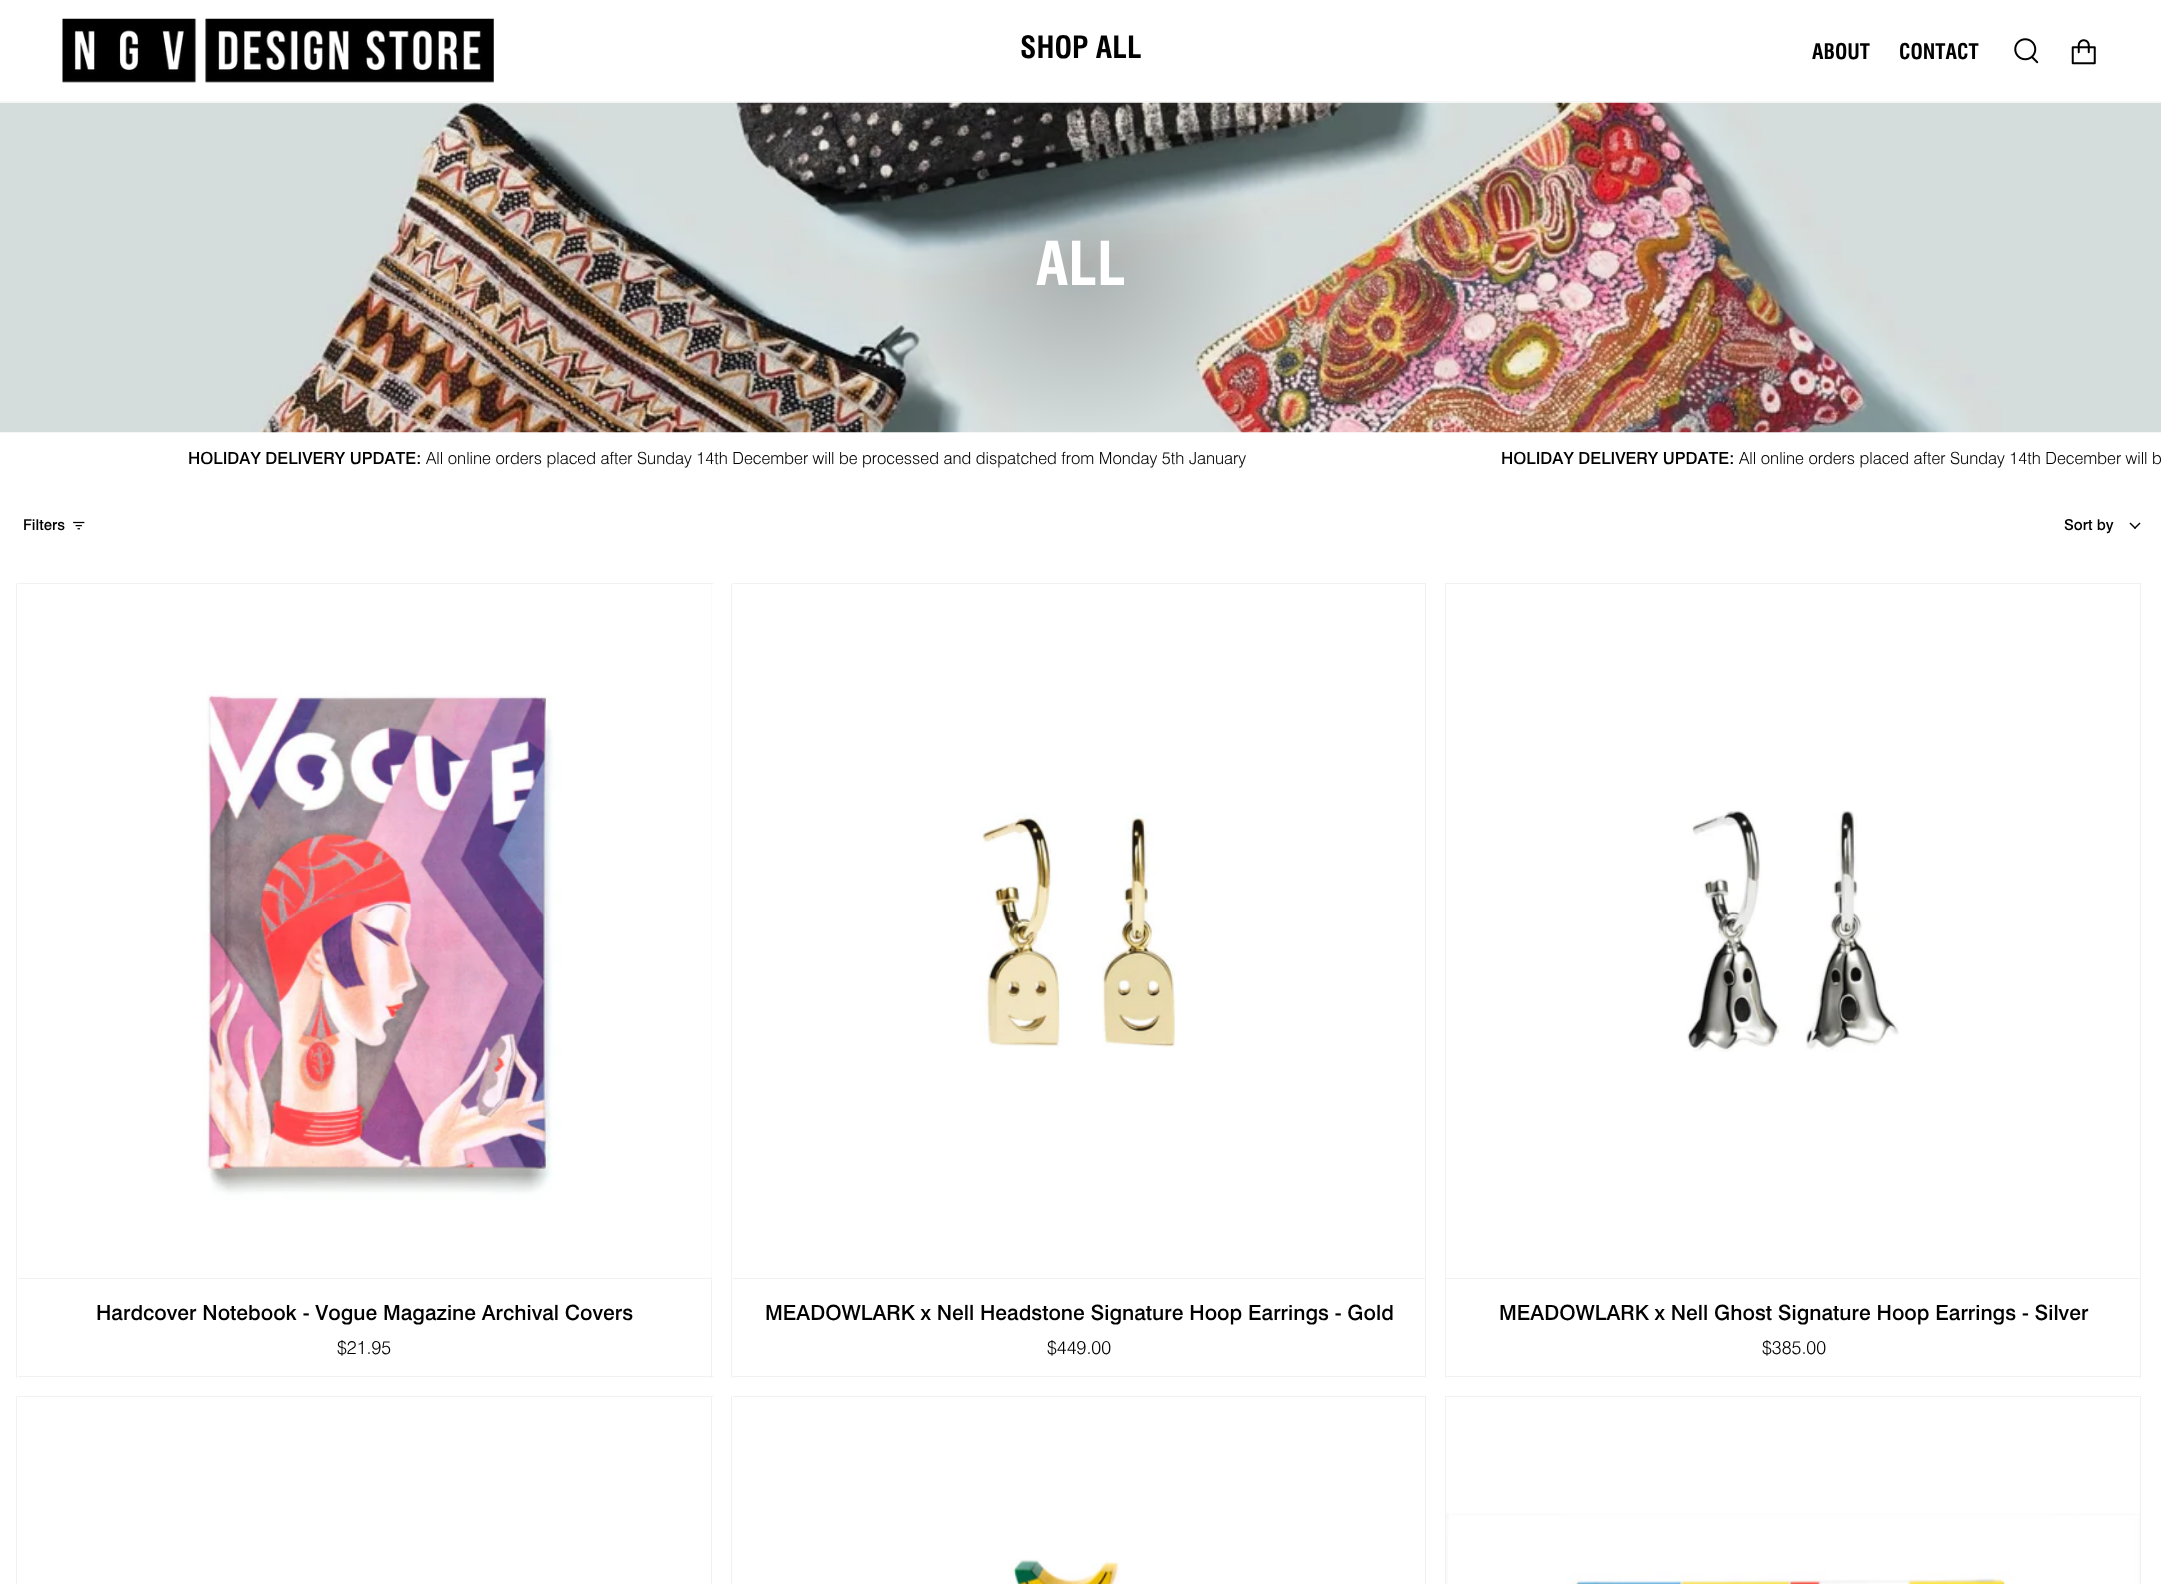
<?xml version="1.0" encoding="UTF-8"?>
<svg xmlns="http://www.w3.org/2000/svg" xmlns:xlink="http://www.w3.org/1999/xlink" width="2161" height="1584">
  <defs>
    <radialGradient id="g1" gradientUnits="userSpaceOnUse" cx="0" cy="0" r="1" gradientTransform="matrix(268 0 0 241 1081 267)"><stop offset="0" stop-color="#000000" stop-opacity="0.2" /><stop offset="0.7" stop-color="#000000" stop-opacity="0" /></radialGradient>
  </defs>
  <rect width="100%" height="100%" fill="#ffffff" />
  <rect y="101" width="2161" height="1" fill="#f6f5f5" />
  <image x="62" y="18" width="432" height="65" xlink:href="image1.png" />
  <image x="2014" y="38" width="25" height="26" xlink:href="image2.png" />
  <image x="2071" y="39" width="25" height="26" xlink:href="image3.png" />
  <image x="0" y="102" width="2161" height="331" xlink:href="image4.png" />
  <ellipse cx="1080.5" cy="267.5" rx="189.5" ry="170.5" fill="url(#g1)" />
  <image x="73" y="521" width="12" height="9" xlink:href="image5.png" />
  <path d="M 2134 528 l 5.5 -5.5 l 1 1 l -5.5 5.5 z" fill="#000000" />
  <path d="M 2129.5 523.5 l 1 -1 l 5.5 5.5 l -1 1 z" fill="#000000" />
  <rect x="18" y="583" width="695" height="1" fill="#f1f1f1" />
  <rect x="711" y="583" width="1" height="795" fill="#f1f1f1" />
  <rect x="18" y="1376" width="695" height="1" fill="#f1f1f1" />
  <rect x="16" y="583" width="1" height="795" fill="#f1f1f1" />
  <rect x="18" y="1278" width="693" height="1" fill="#f1f1f1" />
  <image x="202" y="584" width="510" height="694" xlink:href="image6.png" />
  <rect x="733" y="583" width="693" height="1" fill="#f1f1f1" />
  <rect x="1425" y="583" width="1" height="795" fill="#f1f1f1" />
  <rect x="733" y="1376" width="693" height="1" fill="#f1f1f1" />
  <rect x="731" y="583" width="1" height="795" fill="#f1f1f1" />
  <rect x="733" y="1278" width="692" height="1" fill="#f1f1f1" />
  <image x="979" y="812" width="197" height="236" xlink:href="image7.png" />
  <rect x="1446" y="583" width="695" height="1" fill="#f1f1f1" />
  <rect x="2140" y="583" width="1" height="795" fill="#f1f1f1" />
  <rect x="1446" y="1376" width="695" height="1" fill="#f1f1f1" />
  <rect x="1445" y="583" width="1" height="795" fill="#f1f1f1" />
  <rect x="1446" y="1278" width="694" height="1" fill="#f1f1f1" />
  <image x="1687" y="810" width="212" height="242" xlink:href="image8.png" />
  <rect x="18" y="1396" width="695" height="1" fill="#f1f1f1" />
  <rect x="711" y="1396" width="1" height="188" fill="#f1f1f1" />
  <rect x="16" y="1396" width="1" height="188" fill="#f1f1f1" />
  <rect x="733" y="1396" width="693" height="1" fill="#f1f1f1" />
  <rect x="1425" y="1396" width="1" height="188" fill="#f1f1f1" />
  <rect x="731" y="1396" width="1" height="188" fill="#f1f1f1" />
  <image x="1010" y="1559" width="110" height="25" xlink:href="image9.png" />
  <rect x="1446" y="1396" width="695" height="1" fill="#f1f1f1" />
  <rect x="2140" y="1396" width="1" height="188" fill="#f1f1f1" />
  <rect x="1445" y="1396" width="1" height="188" fill="#f1f1f1" />
  <image x="1446" y="1513" width="694" height="71" xlink:href="image10.png" />
  <text x="1020" y="58" style="font-family: 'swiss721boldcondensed'; font-size: 30px; fill: #000000">SHOP ALL</text>
  <text x="1812" y="59" style="font-family: 'swiss721boldcondensed'; font-size: 21px; fill: #000000">ABOUT</text>
  <text x="1899" y="59" style="font-family: 'swiss721boldcondensed'; font-size: 21px; fill: #000000">CONTACT</text>
  <text x="1036" y="285" style="font-family: 'swiss721boldcondensed'; font-size: 59px; fill: #ffffff">ALL</text>
  <text x="188" y="464" style="font-family: 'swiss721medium'; font-size: 16.8px; fill: #000000">HOLIDAY DELIVERY UPDATE:</text>
  <text x="426" y="464" style="font-family: 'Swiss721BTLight'; font-size: 16.8px; fill: #000000">All online orders placed after Sunday 14th December will be processed and dispatched from Monday 5th January</text>
  <text x="1501" y="464" style="font-family: 'swiss721medium'; font-size: 16.8px; fill: #000000">HOLIDAY DELIVERY UPDATE:</text>
  <text x="1739" y="464" style="font-family: 'Swiss721BTLight'; font-size: 16.8px; fill: #000000">All online orders placed after Sunday 14th December will b</text>
  <text x="23" y="530" style="font-family: 'swiss721medium'; font-size: 15px; fill: #000000">Filters</text>
  <text x="2064" y="530" style="font-family: 'swiss721medium'; font-size: 15px; fill: #000000">Sort by</text>
  <text x="96" y="1320" style="font-family: 'swiss721medium'; font-size: 21px; fill: #000000">Hardcover Notebook - Vogue Magazine Archival Covers</text>
  <text x="337" y="1354" style="font-family: 'Swiss721BTLight'; font-size: 18.5px; fill: #000000">$21.95</text>
  <text x="765" y="1320" style="font-family: 'swiss721medium'; font-size: 21px; fill: #000000">MEADOWLARK x Nell Headstone Signature Hoop Earrings - Gold</text>
  <text x="1047" y="1354" style="font-family: 'Swiss721BTLight'; font-size: 18.5px; fill: #000000">$449.00</text>
  <text x="1499" y="1320" style="font-family: 'swiss721medium'; font-size: 21px; fill: #000000">MEADOWLARK x Nell Ghost Signature Hoop Earrings - Silver</text>
  <text x="1762" y="1354" style="font-family: 'Swiss721BTLight'; font-size: 18.5px; fill: #000000">$385.00</text>
</svg>
